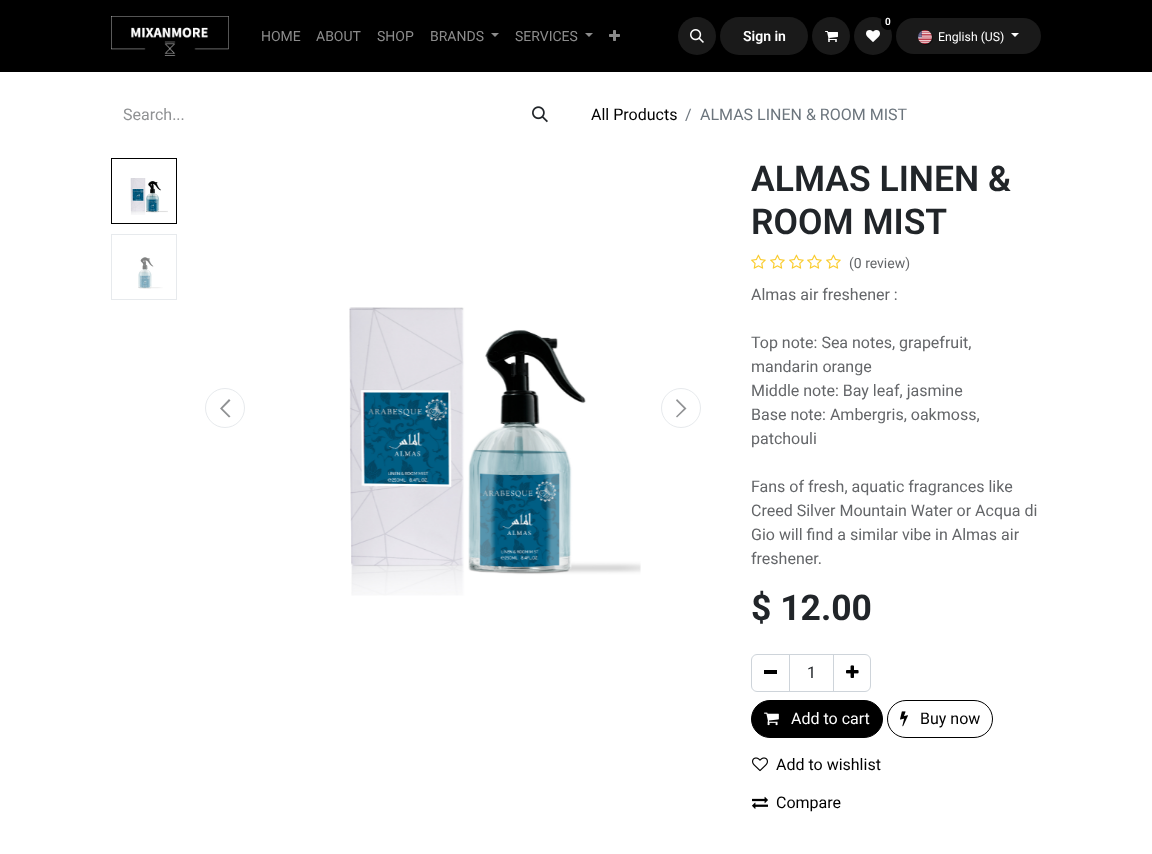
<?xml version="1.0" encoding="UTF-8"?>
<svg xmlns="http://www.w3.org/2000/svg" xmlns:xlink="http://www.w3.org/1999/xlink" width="1152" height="854">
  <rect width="100%" height="100%" fill="#ffffff" />
  <rect width="1152" height="72" fill="#000000" />
  <image x="111" y="16" width="118" height="40" xlink:href="image1.png" />
  <path d="M 491 33 h 8 l -4 4 z" fill="#8c8c8c" />
  <path d="M 585 33 h 8 l -4 4 z" fill="#8c8c8c" />
  <image x="609" y="30" width="11" height="11" xlink:href="image2.png" />
  <circle cx="697" cy="36" r="19" fill="#1a1a1a" />
  <image x="690" y="29" width="14" height="14" xlink:href="image3.png" />
  <circle cx="831" cy="36" r="19" fill="#1a1a1a" />
  <image x="825" y="31" width="13" height="11" xlink:href="image4.png" />
  <circle cx="873" cy="36" r="19" fill="#1a1a1a" />
  <rect x="881" y="14" width="14" height="16" rx="7" fill="#000000" />
  <image x="866" y="30" width="14" height="12" xlink:href="image5.png" />
  <rect x="720" y="17" width="88" height="38" rx="19" fill="#1a1a1a" />
  <rect x="896" y="18" width="145" height="36" rx="18" fill="#1a1a1a" />
  <rect x="919" y="31" width="14" height="14" rx="7" fill="#000000" fill-opacity="0.43" filter="blur(0.5px)" />
  <image x="918" y="30" width="14" height="14" xlink:href="image6.png" />
  <path d="M 1011 33 h 8 l -4 4 z" fill="#ffffff" />
  <image x="532" y="106" width="16" height="17" xlink:href="image7.png" />
  <rect x="111.5" y="158.5" width="65" height="65" fill="none" stroke="#000000" />
  <image x="130" y="178" width="38" height="37" xlink:href="image8.png" />
  <rect x="111.5" y="234.5" width="65" height="65" fill="none" stroke="#e7eaed" />
  <image x="138" y="257" width="25" height="32" xlink:href="image9.png" />
  <circle cx="225" cy="408" r="19.5" fill="none" stroke="#e7eaed" />
  <path d="M 220 408.5 l 9 -9.5 l 1.5 1.5 l -8 8 l 8 8 l -1.5 1 z" fill="#909294" />
  <image x="349" y="307" width="292" height="289" xlink:href="image10.png" />
  <circle cx="681" cy="408" r="19.5" fill="none" stroke="#e7eaed" />
  <path d="M 686.5 408.5 l -9.5 9 l -1 -1 l 8 -8 l -8 -8 l 1 -1.5 z" fill="#909294" />
  <image x="751" y="254" width="15" height="15" xlink:href="image11.png" />
  <image x="770" y="254" width="15" height="15" xlink:href="image11.png" />
  <image x="789" y="254" width="15" height="15" xlink:href="image11.png" />
  <image x="807" y="254" width="15" height="15" xlink:href="image11.png" />
  <image x="826" y="254" width="15" height="15" xlink:href="image11.png" />
  <rect x="789.5" y="654.5" width="44" height="37" fill="none" stroke="#ced4da" />
  <path d="M 757 654.5 h 32.5 v 37 h -32.5 c -3 0 -5.5 -2.5 -5.5 -5.5 v -26 c 0 -3 2.5 -5.5 5.5 -5.5 z" fill="none" stroke="#ced4da" />
  <rect x="764" y="670" width="13" height="4" fill="#000000" />
  <path d="M 833.5 654.5 h 31.5 c 3 0 5.5 2.5 5.5 5.5 v 26 c 0 3 -2.5 5.5 -5.5 5.5 h -31.5 z" fill="none" stroke="#ced4da" />
  <image x="846" y="665" width="13" height="13" xlink:href="image12.png" />
  <rect x="751.5" y="700.5" width="131" height="37" rx="18.5" fill="#000000" stroke="#000000" />
  <image x="764" y="712" width="15" height="14" xlink:href="image13.png" />
  <rect x="887.5" y="700.5" width="105" height="37" rx="18.5" fill="none" stroke="#000000" />
  <image x="900" y="711" width="8" height="16" xlink:href="image14.png" />
  <image x="752" y="757" width="16" height="15" xlink:href="image15.png" />
  <image x="752" y="796" width="16" height="13" xlink:href="image16.png" />
  <text x="261" y="41" style="font-family: Roboto; font-size: 14px; fill: #8c8c8c">HOME</text>
  <text x="316" y="41" style="font-family: Roboto; font-size: 14px; fill: #8c8c8c">ABOUT</text>
  <text x="377" y="41" style="font-family: Roboto; font-size: 14px; fill: #8c8c8c">SHOP</text>
  <text x="430" y="41" style="font-family: Roboto; font-size: 14px; fill: #8c8c8c">BRANDS</text>
  <text x="515" y="41" style="font-family: Roboto; font-size: 14px; fill: #8c8c8c">SERVICES</text>
  <text x="885" y="25" style="font-family: Roboto; font-size: 10px; font-weight: 600; fill: #ffffff">0</text>
  <text x="743" y="41" style="font-family: Roboto; font-size: 14px; font-weight: 600; fill: #ffffff">Sign in</text>
  <text x="938" y="41" style="font-family: Roboto; font-size: 12.25px; fill: #ffffff">English (US)</text>
  <text x="123" y="120" style="font-family: Roboto; font-size: 16px; fill: #909294">Search...</text>
  <text x="591" y="120" style="font-family: Roboto; font-size: 16px; fill: #000000">All Products</text>
  <text x="685" y="120" style="font-family: Roboto; font-size: 16px; fill: #6c757d">/</text>
  <text x="700" y="120" style="font-family: Roboto; font-size: 16px; fill: #6c757d">ALMAS LINEN &amp; ROOM MIST</text>
  <text x="751" y="191" style="font-family: Roboto; font-size: 35.5px; font-weight: 600; fill: #212529">ALMAS LINEN &amp;</text>
  <text x="751" y="234" style="font-family: Roboto; font-size: 35.5px; font-weight: 600; fill: #212529">ROOM MIST</text>
  <text x="849" y="268" style="font-family: Roboto; font-size: 14px; fill: #646669">(0 review)</text>
  <text x="751" y="300" style="font-family: Roboto; font-size: 16px; fill: #646669">Almas air freshener :</text>
  <text x="751" y="348" style="font-family: Roboto; font-size: 16px; fill: #646669">Top note: Sea notes, grapefruit,</text>
  <text x="751" y="372" style="font-family: Roboto; font-size: 16px; fill: #646669">mandarin orange</text>
  <text x="751" y="396" style="font-family: Roboto; font-size: 16px; fill: #646669">Middle note: Bay leaf, jasmine</text>
  <text x="751" y="420" style="font-family: Roboto; font-size: 16px; fill: #646669">Base note: Ambergris, oakmoss,</text>
  <text x="751" y="444" style="font-family: Roboto; font-size: 16px; fill: #646669">patchouli</text>
  <text x="751" y="492" style="font-family: Roboto; font-size: 16px; fill: #646669">Fans of fresh, aquatic fragrances like</text>
  <text x="751" y="516" style="font-family: Roboto; font-size: 16px; fill: #646669">Creed Silver Mountain Water or Acqua di</text>
  <text x="751" y="540" style="font-family: Roboto; font-size: 16px; fill: #646669">Gio will find a similar vibe in Almas air</text>
  <text x="751" y="564" style="font-family: Roboto; font-size: 16px; fill: #646669">freshener.</text>
  <text x="751" y="620" style="font-family: Roboto; font-size: 35.5px; font-weight: bold; fill: #212529">$ 12.00</text>
  <text x="807" y="678" style="font-family: Roboto; font-size: 16px; fill: #212529">1</text>
  <text x="791" y="724" style="font-family: Roboto; font-size: 16px; fill: #ffffff">Add to cart</text>
  <text x="920" y="724" style="font-family: Roboto; font-size: 16px; fill: #000000">Buy now</text>
  <text x="776" y="770" style="font-family: Roboto; font-size: 16px; fill: #000000">Add to wishlist</text>
  <text x="776" y="808" style="font-family: Roboto; font-size: 16px; fill: #000000">Compare</text>
</svg>
